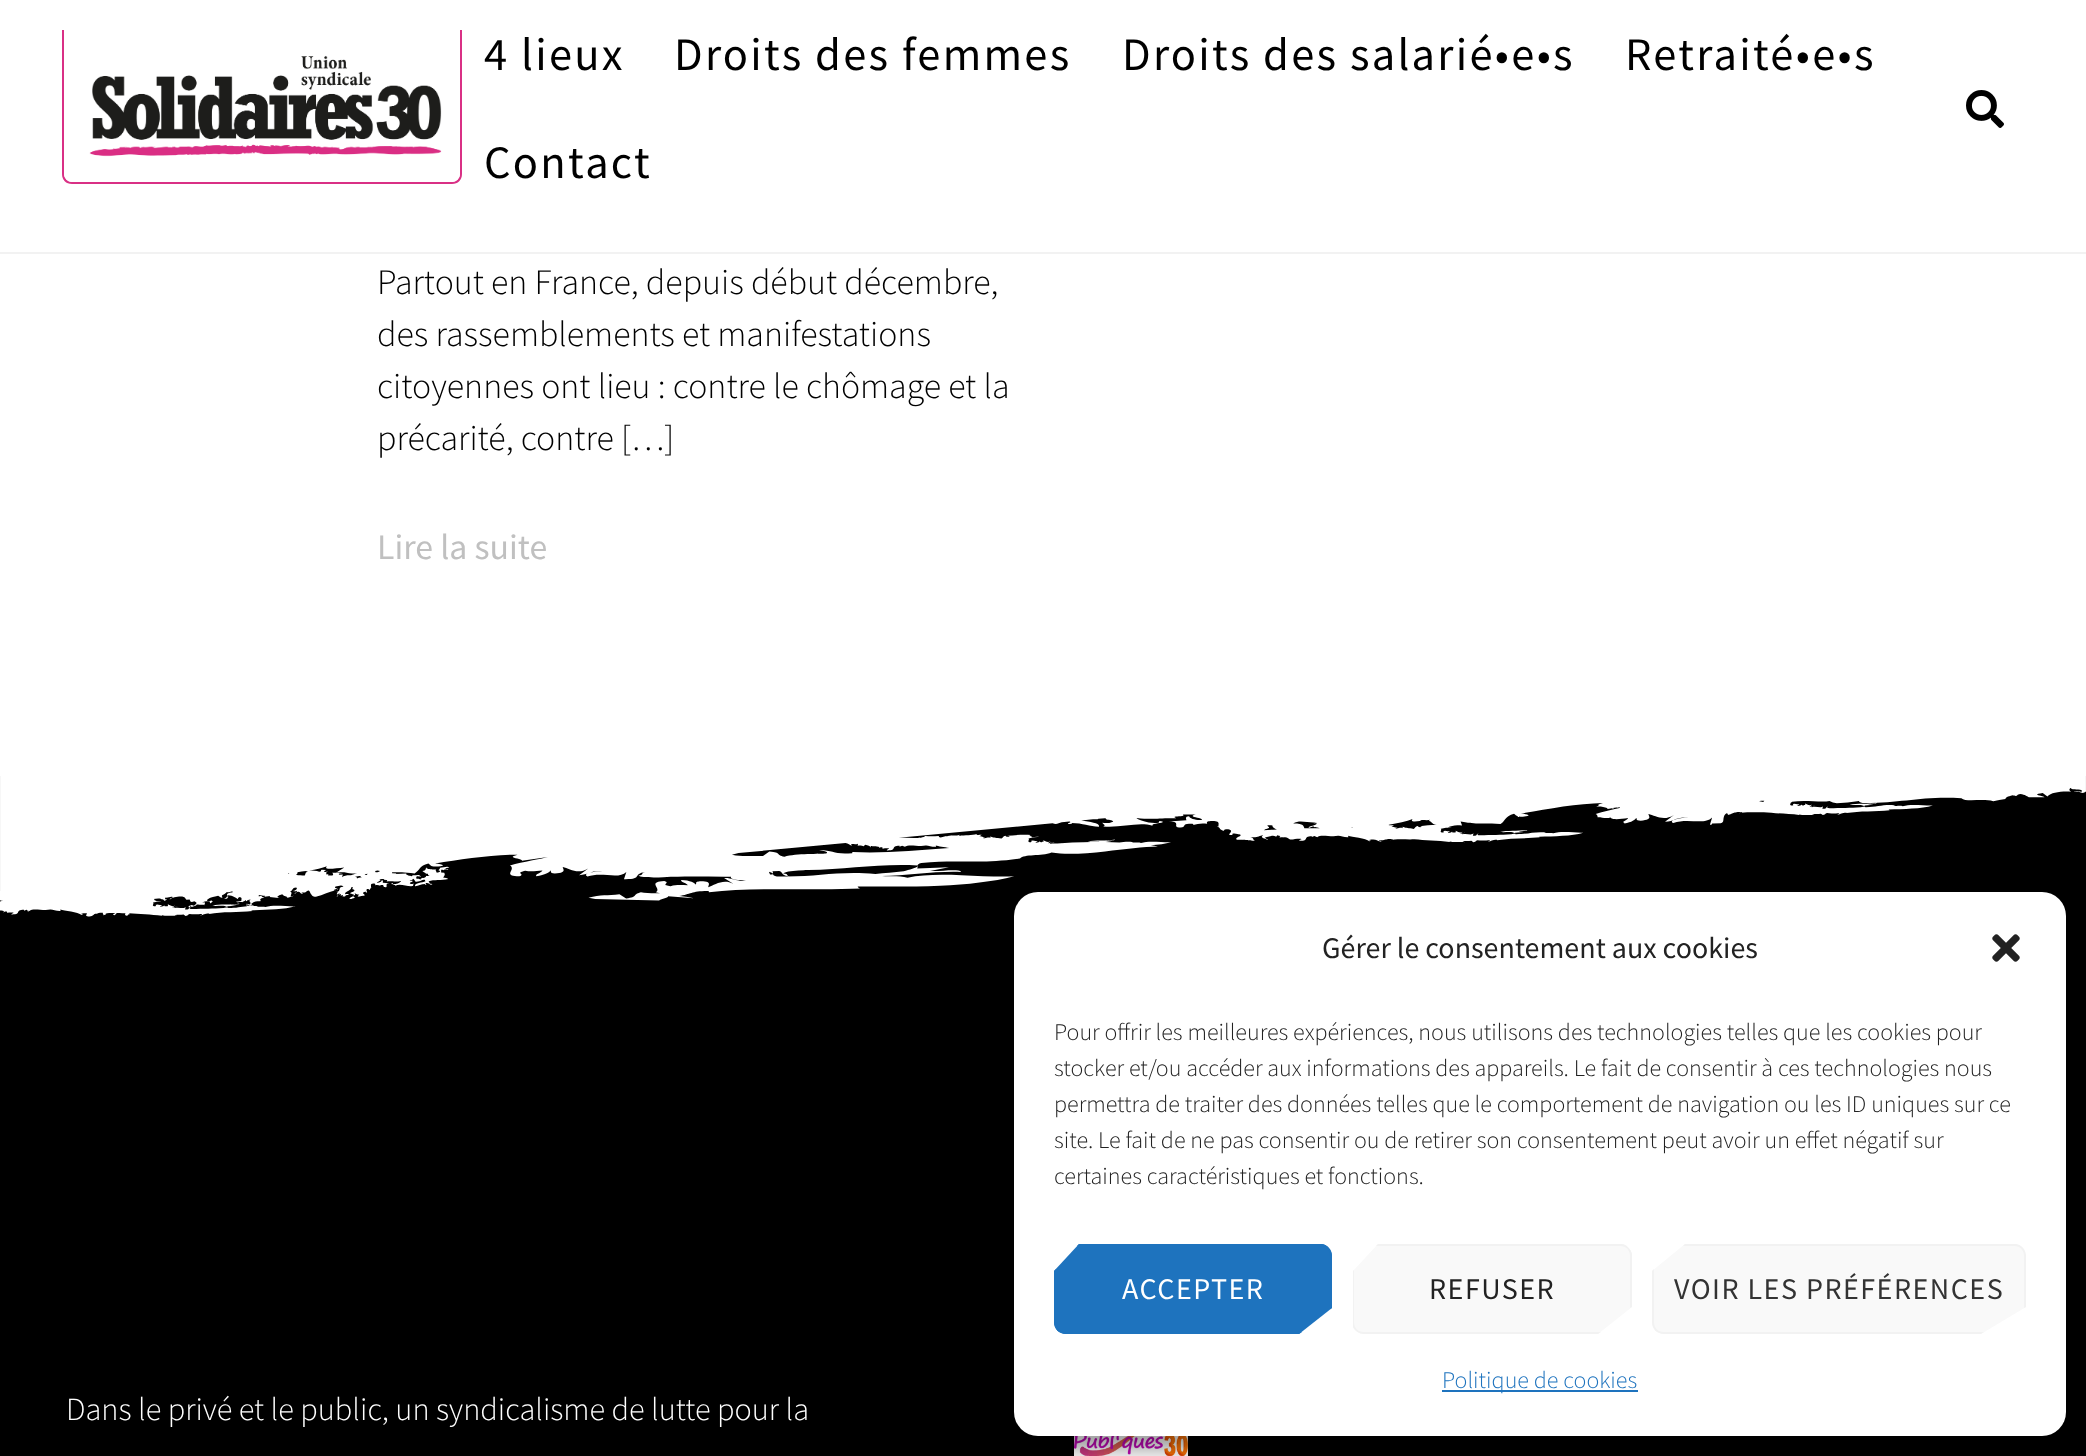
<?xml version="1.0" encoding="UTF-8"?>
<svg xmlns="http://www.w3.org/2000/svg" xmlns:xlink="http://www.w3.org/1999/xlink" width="2086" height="1456">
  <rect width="100%" height="100%" fill="#ffffff" />
  <rect y="252" width="2086" height="2" fill="#f2f2f2" />
  <path d="M 62 30 h 400 v 144 c 0 6 -4 10 -10 10 h -380 c -6 0 -10 -4 -10 -10 z m 2 0 h 396 v 144 c 0 4 -4 8 -8 8 h -380 c -4 0 -8 -4 -8 -8 z" fill="#d93085" fill-rule="evenodd" />
  <image x="64" y="55" width="396" height="127" xlink:href="image1.png" />
  <image x="1966" y="90" width="38" height="38" xlink:href="image2.png" />
  <rect y="776" width="2086" height="680" fill="#000000" />
  <image x="0" y="776" width="2086" height="141" xlink:href="image3.png" />
  <image x="1074" y="1436" width="114" height="20" xlink:href="image4.png" />
  <rect x="1014" y="904" width="1052" height="544" rx="24" fill="#000000" fill-opacity="0.23" filter="blur(6px)" />
  <rect x="1014" y="912" width="1052" height="544" rx="24" fill="#000000" fill-opacity="0.19" filter="blur(20px)" />
  <rect x="1014" y="892" width="1052" height="544" rx="24" fill="#ffffff" />
  <image x="1992" y="934" width="28" height="28" xlink:href="image5.png" />
  <path d="M 1079 1244 l -25 27 v 51 c 0 7 5 12 12 12 h 233 l 33 -26 v -52 c 0 -6 -5 -12 -11 -12 z" fill="#1e73be" />
  <path d="M 1054 1271 v 51 c 0 7 5 12 12 12 h 233 l 3 -2 h -236 c -6 0 -10 -4 -10 -10 v -53 z m 25 -27 l -2 2 h 243 c 6 0 10 4 10 10 v 53 l 2 -1 v -52 c 0 -6 -5 -12 -11 -12 z" fill="#1e73be" fill-rule="evenodd" />
  <path d="M 1378 1244 h 243 c 5 0 10 5 11 10 v 53 l -34 27 h -234 c -5 0 -9 -3 -11 -7 v -56 z" fill="#f9f9f9" />
  <path d="M 1598 1334 h -234 c -5 0 -9 -3 -11 -7 v -56 l 1 -1 v 52 c 0 6 4 10 10 10 h 237 z m -220 -90 h 243 c 5 0 10 5 11 10 v 53 l -2 1 v -52 c 0 -6 -4 -10 -10 -10 h -244 z" fill="#f2f2f2" fill-rule="evenodd" />
  <path d="M 1685 1244 h 330 c 6 0 11 6 11 12 v 51 l -45 27 h -317 c -7 0 -12 -5 -12 -12 v -51 z" fill="#f9f9f9" />
  <path d="M 1981 1334 h -317 c -7 0 -12 -5 -12 -12 v -51 l 2 -2 v 53 c 0 6 4 10 10 10 h 320 z m -296 -90 l -2 2 h 331 c 6 0 10 4 10 10 v 52 l 2 -1 v -51 c 0 -6 -5 -12 -11 -12 z" fill="#f2f2f2" fill-rule="evenodd" />
  <rect x="1442" y="1390" width="196" height="2" fill="#1e73be" />
  <text x="484" y="70" style="font-family: Source Sans Pro; font-size: 46.5px; letter-spacing: 2.3px; fill: #000000">4 lieux</text>
  <text x="674" y="70" style="font-family: Source Sans Pro; font-size: 46.5px; letter-spacing: 2.3px; fill: #000000">Droits des femmes</text>
  <text x="1122" y="70" style="font-family: Source Sans Pro; font-size: 46.5px; letter-spacing: 2.3px; fill: #000000">Droits des salarié•e•s</text>
  <text x="1625" y="70" style="font-family: Source Sans Pro; font-size: 46.5px; letter-spacing: 2.3px; fill: #000000">Retraité•e•s</text>
  <text x="484" y="178" style="font-family: Source Sans Pro; font-size: 46.5px; letter-spacing: 2.3px; fill: #000000">Contact</text>
  <text x="377" y="294" style="font-family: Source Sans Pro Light; font-size: 35.8px; font-weight: 300; fill: #000000">Partout en France, depuis début décembre,</text>
  <text x="377" y="346" style="font-family: Source Sans Pro Light; font-size: 35.8px; font-weight: 300; fill: #000000">des rassemblements et manifestations</text>
  <text x="377" y="398" style="font-family: Source Sans Pro Light; font-size: 35.8px; font-weight: 300; fill: #000000">citoyennes ont lieu : contre le chômage et la</text>
  <text x="377" y="450" style="font-family: Source Sans Pro Light; font-size: 35.8px; font-weight: 300; fill: #000000">précarité, contre […]</text>
  <text x="377" y="559" style="font-family: Source Sans Pro; font-size: 35.8px; fill: #c0c0c0">Lire la suite</text>
  <text x="66" y="1420" style="font-family: Source Sans Pro Light; font-size: 32.25px; font-weight: 300; fill: #ffffff">Dans le privé et le public, un syndicalisme de lutte pour la</text>
  <text x="1322" y="958" style="font-family: Source Sans Pro; font-size: 30px; fill: #222222">Gérer le consentement aux cookies</text>
  <text x="1054" y="1040" style="font-family: Source Sans Pro Light; font-size: 24px; font-weight: 300; fill: #222222">Pour offrir les meilleures expériences, nous utilisons des technologies telles que les cookies pour</text>
  <text x="1054" y="1076" style="font-family: Source Sans Pro Light; font-size: 24px; font-weight: 300; fill: #222222">stocker et/ou accéder aux informations des appareils. Le fait de consentir à ces technologies nous</text>
  <text x="1054" y="1112" style="font-family: Source Sans Pro Light; font-size: 24px; font-weight: 300; fill: #222222">permettra de traiter des données telles que le comportement de navigation ou les ID uniques sur ce</text>
  <text x="1054" y="1148" style="font-family: Source Sans Pro Light; font-size: 24px; font-weight: 300; fill: #222222">site. Le fait de ne pas consentir ou de retirer son consentement peut avoir un effet négatif sur</text>
  <text x="1054" y="1184" style="font-family: Source Sans Pro Light; font-size: 24px; font-weight: 300; fill: #222222">certaines caractéristiques et fonctions.</text>
  <text x="1122" y="1299" style="font-family: Source Sans Pro; font-size: 30px; letter-spacing: 1.5px; fill: #ffffff">ACCEPTER</text>
  <text x="1429" y="1299" style="font-family: Source Sans Pro; font-size: 30px; letter-spacing: 1.5px; fill: #222222">REFUSER</text>
  <text x="1674" y="1299" style="font-family: Source Sans Pro; font-size: 30px; letter-spacing: 1.5px; fill: #333333">VOIR LES PRÉFÉRENCES</text>
  <text x="1442" y="1388" style="font-family: Source Sans Pro Light; font-size: 24px; font-weight: 300; fill: #1e73be">Politique de cookies</text>
</svg>
